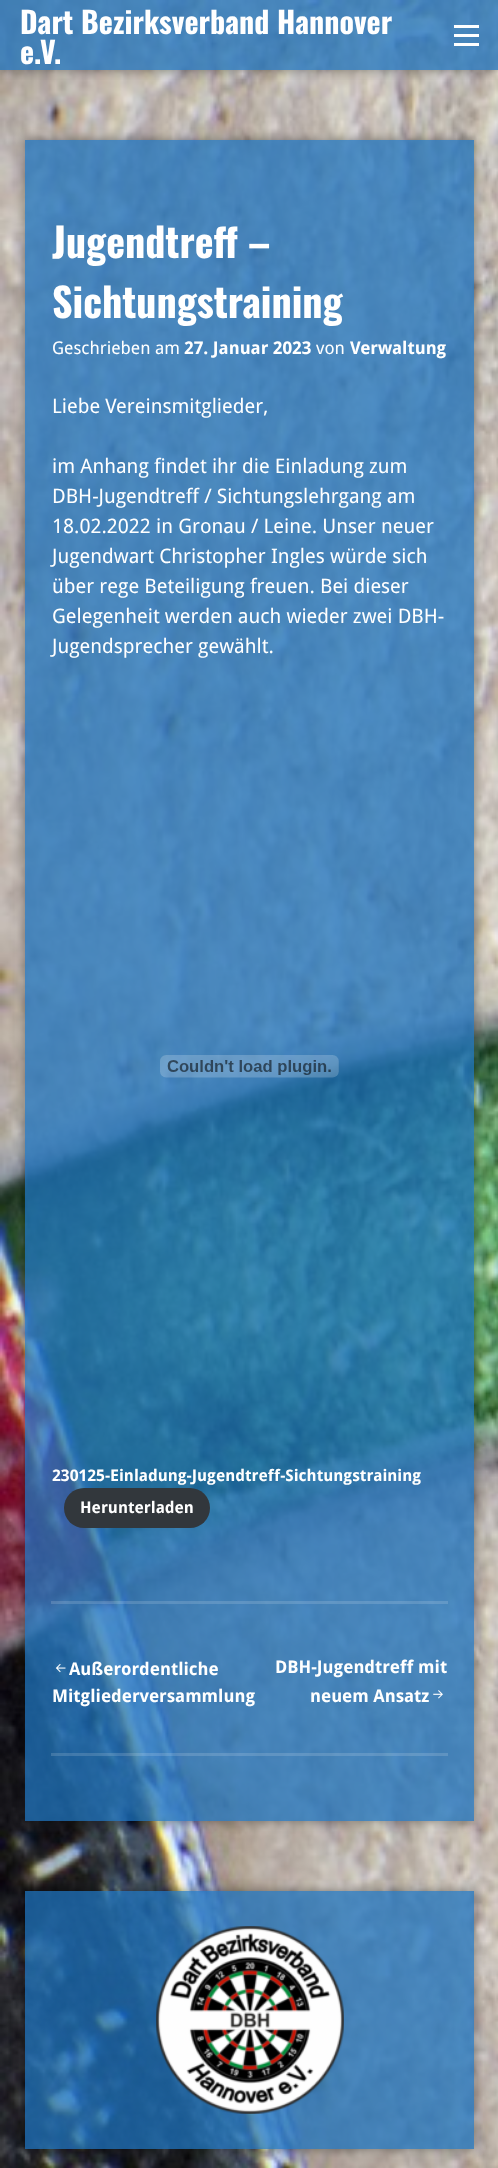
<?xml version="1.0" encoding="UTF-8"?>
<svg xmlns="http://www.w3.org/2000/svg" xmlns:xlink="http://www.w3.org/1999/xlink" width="498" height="2168">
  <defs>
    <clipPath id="clip1"><rect x="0" y="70" width="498" height="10" /></clipPath>
    <clipPath id="clip2"><path d="M 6 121 h 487 v 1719 h -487 z m 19 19 h 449 v 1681 h -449 z" clip-rule="evenodd" /></clipPath>
    <clipPath id="clip3"><path d="M 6 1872 h 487 v 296 h -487 z m 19 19 h 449 v 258 h -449 z" clip-rule="evenodd" /></clipPath>
  </defs>
  <rect width="100%" height="100%" fill="#ffffff" />
  <image x="0" y="0" width="498" height="2168" xlink:href="image1.png" />
  <g clip-path="url(#clip1)">
    <rect width="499" height="70" fill="#000000" fill-opacity="0.4" filter="blur(6px)" />
  </g>
  <rect width="498" height="70" fill="#1e73be" fill-opacity="0.75" />
  <rect x="454" y="34" width="25" height="3" fill="#ffffff" />
  <rect x="454" y="25" width="25" height="3" fill="#ffffff" />
  <rect x="454" y="43" width="25" height="3" fill="#ffffff" />
  <g clip-path="url(#clip2)">
    <rect x="25" y="140" width="449" height="1681" fill="#000000" fill-opacity="0.4" filter="blur(6px)" />
  </g>
  <rect x="25" y="140" width="449" height="1681" fill="#1e73be" fill-opacity="0.75" />
  <rect x="51" y="1601" width="397" height="3" fill="#ffffff" fill-opacity="0.15" />
  <image x="160" y="1055" width="179" height="23" xlink:href="image2.png" />
  <rect x="64" y="1488" width="146" height="40" rx="20" fill="#32373c" />
  <rect x="51" y="1753" width="397" height="3" fill="#ffffff" fill-opacity="0.15" />
  <image x="55" y="1664" width="11" height="9" xlink:href="image3.png" />
  <image x="433" y="1690" width="10" height="9" xlink:href="image4.png" />
  <g clip-path="url(#clip3)">
    <rect x="25" y="1891" width="449" height="258" fill="#000000" fill-opacity="0.4" filter="blur(6px)" />
  </g>
  <rect x="25" y="1891" width="449" height="258" fill="#1e73be" fill-opacity="0.75" />
  <image x="156" y="1926" width="188" height="188" xlink:href="image5.png" />
  <text x="20" y="34" style="font-family: Oswald; font-size: 30px; font-weight: bold; fill: #ffffff">Dart Bezirksverband Hannover</text>
  <text x="20" y="64" style="font-family: Oswald; font-size: 30px; font-weight: bold; fill: #ffffff">e.V.</text>
  <text x="52" y="258" style="font-family: Oswald; font-size: 40px; font-weight: bold; fill: #ffffff">Jugendtreff –</text>
  <text x="52" y="318" style="font-family: Oswald; font-size: 40px; font-weight: bold; fill: #ffffff">Sichtungstraining</text>
  <text x="52" y="354" style="font-family: Droid Sans; font-size: 17.5px; fill: #ffffff">Geschrieben am</text>
  <text x="184" y="354" style="font-family: Droid Sans; font-size: 17.5px; font-weight: bold; fill: #ffffff">27. Januar 2023</text>
  <text x="316" y="354" style="font-family: Droid Sans; font-size: 17.5px; fill: #ffffff">von</text>
  <text x="350" y="354" style="font-family: Droid Sans; font-size: 17.5px; font-weight: bold; fill: #ffffff">Verwaltung</text>
  <text x="52" y="413" style="font-family: Droid Sans; font-size: 20px; fill: #ffffff">Liebe Vereinsmitglieder,</text>
  <text x="52" y="473" style="font-family: Droid Sans; font-size: 20px; fill: #ffffff">im Anhang findet ihr die Einladung zum</text>
  <text x="52" y="503" style="font-family: Droid Sans; font-size: 20px; fill: #ffffff">DBH-Jugendtreff / Sichtungslehrgang am</text>
  <text x="52" y="533" style="font-family: Droid Sans; font-size: 20px; fill: #ffffff">18.02.2022 in Gronau / Leine. Unser neuer</text>
  <text x="52" y="563" style="font-family: Droid Sans; font-size: 20px; fill: #ffffff">Jugendwart Christopher Ingles würde sich</text>
  <text x="52" y="593" style="font-family: Droid Sans; font-size: 20px; fill: #ffffff">über rege Beteiligung freuen. Bei dieser</text>
  <text x="52" y="623" style="font-family: Droid Sans; font-size: 20px; fill: #ffffff">Gelegenheit werden auch wieder zwei DBH-</text>
  <text x="52" y="653" style="font-family: Droid Sans; font-size: 20px; fill: #ffffff">Jugendsprecher gewählt.</text>
  <text x="52" y="1481" style="font-family: Droid Sans; font-size: 16px; font-weight: bold; fill: #ffffff">230125-Einladung-Jugendtreff-Sichtungstraining</text>
  <text x="80" y="1513" style="font-family: Droid Sans; font-size: 16px; font-weight: bold; fill: #ffffff">Herunterladen</text>
  <text x="69" y="1675" style="font-family: Droid Sans; font-size: 17.5px; font-weight: bold; fill: #ffffff">Außerordentliche</text>
  <text x="52" y="1702" style="font-family: Droid Sans; font-size: 17.5px; font-weight: bold; fill: #ffffff">Mitgliederversammlung</text>
  <text x="275" y="1673" style="font-family: Droid Sans; font-size: 17.5px; font-weight: bold; fill: #ffffff">DBH-Jugendtreff mit</text>
  <text x="310" y="1702" style="font-family: Droid Sans; font-size: 17.5px; font-weight: bold; fill: #ffffff">neuem Ansatz</text>
</svg>
